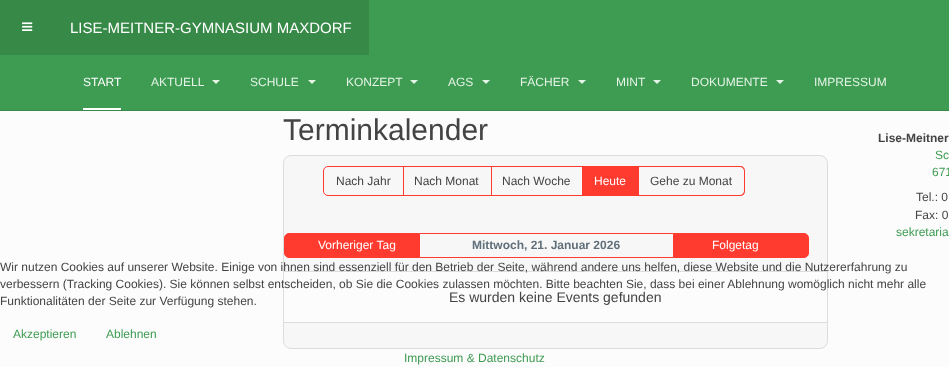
<?xml version="1.0" encoding="UTF-8"?>
<svg xmlns="http://www.w3.org/2000/svg" xmlns:xlink="http://www.w3.org/1999/xlink" width="949" height="367">
  <rect width="100%" height="100%" fill="#fcfcfc" />
  <rect width="949" height="110" fill="#3e9b52" />
  <rect y="110" width="949" height="1" fill="#378948" />
  <rect width="369" height="55" fill="#378948" />
  <image x="22" y="22" width="11" height="9" xlink:href="image1.png" />
  <rect x="83" y="108" width="38" height="2" fill="#ffffff" />
  <path d="M 212 80 h 8 l -4 4 z" fill="#e4f4e7" />
  <path d="M 308 80 h 8 l -4 4 z" fill="#e4f4e7" />
  <path d="M 410 80 h 8 l -4 4 z" fill="#e4f4e7" />
  <path d="M 482 80 h 8 l -4 4 z" fill="#e4f4e7" />
  <path d="M 578 80 h 8 l -4 4 z" fill="#e4f4e7" />
  <path d="M 653 80 h 8 l -4 4 z" fill="#e4f4e7" />
  <path d="M 776 80 h 8 l -4 4 z" fill="#e4f4e7" />
  <rect x="283.5" y="155.5" width="544" height="193" rx="7.5" fill="#f7f7f7" stroke="#dddddd" />
  <path d="M 328 166.5 h 75.5 v 29 h -75.5 c -2.5 0 -4.5 -2 -4.5 -4.5 v -20 c 0 -2.5 2 -4.5 4.5 -4.5 z" fill="none" stroke="#ff3b30" />
  <rect x="402" y="166" width="90" height="1" fill="#ff3b30" />
  <rect x="491" y="166" width="1" height="30" fill="#ff3b30" />
  <rect x="402" y="195" width="182" height="1" fill="#ff3b30" />
  <rect x="490" y="166" width="94" height="1" fill="#ff3b30" />
  <rect x="638" y="166" width="1" height="30" fill="#ff3b30" />
  <rect x="582" y="195" width="57" height="1" fill="#ff3b30" />
  <rect x="582" y="166" width="56" height="29" fill="#ff3b30" />
  <path d="M 638 166 h 102 c 3 0 5 2 5 5 v 20 c 0 3 -2 5 -5 5 h -102 z m 0 1 h 102 c 2 0 4 2 4 4 v 20 c 0 2 -2 4 -4 4 h -102 z" fill="#ff3b30" fill-rule="evenodd" />
  <path d="M 289 233.5 h 130.5 v 24 h -130.5 c -2.5 0 -4.5 -2 -4.5 -4.5 v -15 c 0 -2.5 2 -4.5 4.5 -4.5 z" fill="#ff3b30" stroke="#ff3b30" />
  <rect x="420" y="233" width="253" height="1" fill="#ff3b30" />
  <rect x="420" y="257" width="253" height="1" fill="#ff3b30" />
  <path d="M 673.5 233.5 h 130.5 c 2.5 0 4.5 2 4.5 4.5 v 15 c 0 2.5 -2 4.5 -4.5 4.5 h -130.5 z" fill="#ff3b30" stroke="#ff3b30" />
  <rect x="283.5" y="271.5" width="544" height="51" fill="#fcfcfc" stroke="#dddddd" />
  <text x="70" y="33" style="font-family: Liberation Sans; font-size: 15px; fill: #ffffff">LISE-MEITNER-GYMNASIUM MAXDORF</text>
  <text x="83" y="86" style="font-family: Liberation Sans; font-size: 12px; fill: #ffffff">START</text>
  <text x="151" y="86" style="font-family: Liberation Sans; font-size: 12px; fill: #e4f4e7">AKTUELL</text>
  <text x="250" y="86" style="font-family: Liberation Sans; font-size: 12px; fill: #e4f4e7">SCHULE</text>
  <text x="346" y="86" style="font-family: Liberation Sans; font-size: 12px; fill: #e4f4e7">KONZEPT</text>
  <text x="448" y="86" style="font-family: Liberation Sans; font-size: 12px; fill: #e4f4e7">AGS</text>
  <text x="520" y="86" style="font-family: Liberation Sans; font-size: 12px; fill: #e4f4e7">FÄCHER</text>
  <text x="616" y="86" style="font-family: Liberation Sans; font-size: 12px; fill: #e4f4e7">MINT</text>
  <text x="691" y="86" style="font-family: Liberation Sans; font-size: 12px; fill: #e4f4e7">DOKUMENTE</text>
  <text x="814" y="86" style="font-family: Liberation Sans; font-size: 12px; fill: #e4f4e7">IMPRESSUM</text>
  <text x="283" y="140" style="font-family: Liberation Sans; font-size: 30px; fill: #444444">Terminkalender</text>
  <text x="336" y="185" style="font-family: Liberation Sans; font-size: 12px; fill: #444444">Nach Jahr</text>
  <text x="414" y="185" style="font-family: Liberation Sans; font-size: 12px; fill: #444444">Nach Monat</text>
  <text x="502" y="185" style="font-family: Liberation Sans; font-size: 12px; fill: #444444">Nach Woche</text>
  <text x="594" y="185" style="font-family: Liberation Sans; font-size: 12px; fill: #ffffff">Heute</text>
  <text x="650" y="185" style="font-family: Liberation Sans; font-size: 12px; fill: #444444">Gehe zu Monat</text>
  <text x="318" y="249" style="font-family: Liberation Sans; font-size: 12px; fill: #ffffff">Vorheriger Tag</text>
  <text x="472" y="249" style="font-family: Liberation Sans; font-size: 12px; font-weight: bold; fill: #606f79">Mittwoch, 21. Januar 2026</text>
  <text x="712" y="249" style="font-family: Liberation Sans; font-size: 12px; fill: #ffffff">Folgetag</text>
  <text x="449" y="302" style="font-family: Liberation Sans; font-size: 14px; fill: #444444">Es wurden keine Events gefunden</text>
  <text x="878" y="142" style="font-family: Liberation Sans; font-size: 12px; font-weight: bold; fill: #444444">Lise-Meitner</text>
  <text x="935" y="159" style="font-family: Liberation Sans; font-size: 12px; fill: #3e9b52">Sc</text>
  <text x="932" y="176" style="font-family: Liberation Sans; font-size: 12px; fill: #3e9b52">671</text>
  <text x="916" y="201" style="font-family: Liberation Sans; font-size: 12px; fill: #444444">Tel.: 0</text>
  <text x="915" y="219" style="font-family: Liberation Sans; font-size: 12px; fill: #444444">Fax: 0</text>
  <text x="896" y="236" style="font-family: Liberation Sans; font-size: 12px; fill: #3e9b52">sekretaria</text>
  <text x="0" y="271" style="font-family: Liberation Sans; font-size: 12px; fill: #444444">Wir nutzen Cookies auf unserer Website. Einige von ihnen sind essenziell für den Betrieb der Seite, während andere uns helfen, diese Website und die Nutzererfahrung zu</text>
  <text x="0" y="288" style="font-family: Liberation Sans; font-size: 12px; fill: #444444">verbessern (Tracking Cookies). Sie können selbst entscheiden, ob Sie die Cookies zulassen möchten. Bitte beachten Sie, dass bei einer Ablehnung womöglich nicht mehr alle</text>
  <text x="0" y="305" style="font-family: Liberation Sans; font-size: 12px; fill: #444444">Funktionalitäten der Seite zur Verfügung stehen.</text>
  <text x="13" y="338" style="font-family: Liberation Sans; font-size: 12px; fill: #3e9b52">Akzeptieren</text>
  <text x="106" y="338" style="font-family: Liberation Sans; font-size: 12px; fill: #3e9b52">Ablehnen</text>
  <text x="404" y="362" style="font-family: Liberation Sans; font-size: 12px; fill: #3e9b52">Impressum &amp; Datenschutz</text>
</svg>
